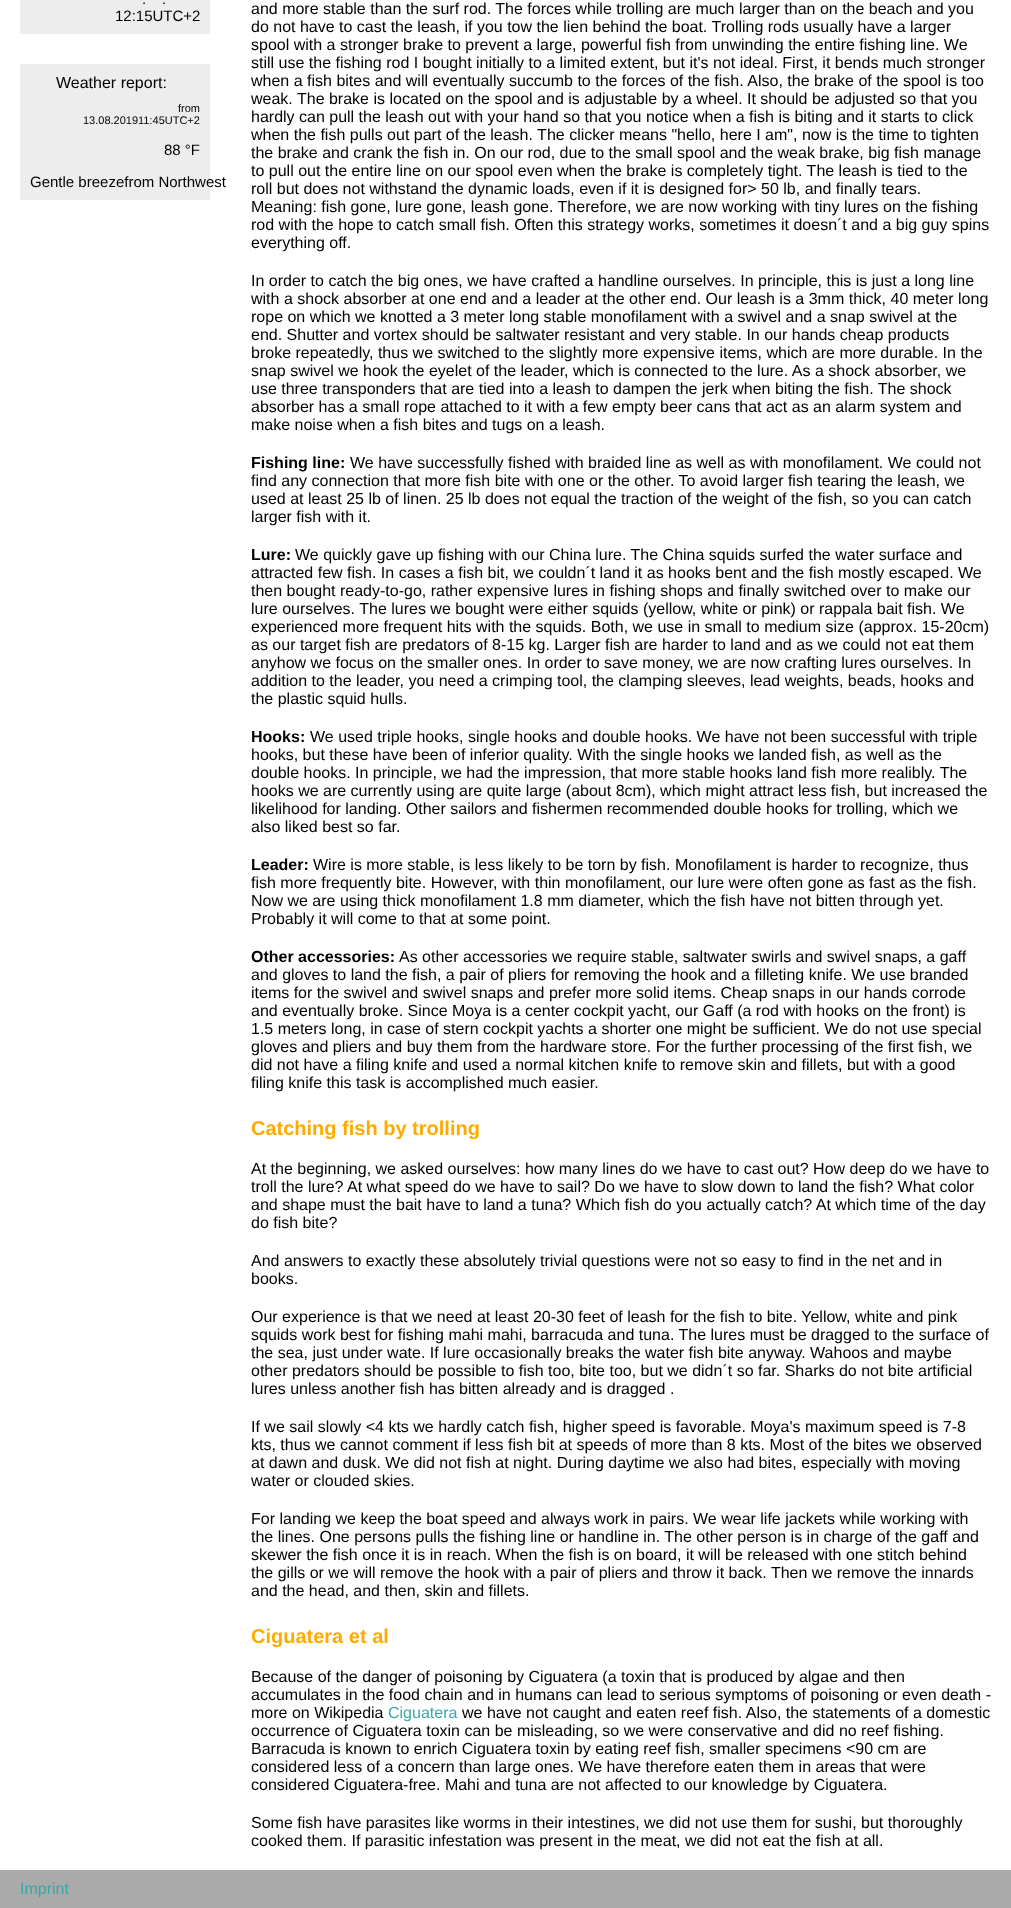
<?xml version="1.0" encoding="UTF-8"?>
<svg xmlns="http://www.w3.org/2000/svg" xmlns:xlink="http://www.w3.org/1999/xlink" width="1011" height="1908">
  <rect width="100%" height="100%" fill="#aaaaaa" />
  <rect width="1011" height="1870" fill="#ffffff" />
  <rect x="20" width="190" height="34" fill="#ededed" />
  <rect x="20" y="64" width="190" height="136" fill="#ededed" />
  <text x="142" y="4" style="font-family: Liberation Sans; font-size: 15px; fill: #000000">.</text>
  <text x="162" y="4" style="font-family: Liberation Sans; font-size: 15px; fill: #000000">.</text>
  <text x="115" y="21" style="font-family: Liberation Sans; font-size: 15px; fill: #000000">12:15UTC+2</text>
  <text x="56" y="88" style="font-family: Liberation Sans; font-size: 16px; fill: #000000">Weather report:</text>
  <text x="178" y="112" style="font-family: Liberation Sans; font-size: 11px; fill: #000000">from</text>
  <text x="83" y="124" style="font-family: Liberation Sans; font-size: 11px; fill: #000000">13.08.201911:45UTC+2</text>
  <text x="164" y="155" style="font-family: Liberation Sans; font-size: 15px; fill: #000000">88 °F</text>
  <text x="30" y="187" style="font-family: Liberation Sans; font-size: 15px; fill: #000000">Gentle breezefrom Northwest</text>
  <text x="251" y="14" style="font-family: Liberation Sans; font-size: 16px; fill: #000000">and more stable than the surf rod. The forces while trolling are much larger than on the beach and you</text>
  <text x="251" y="32" style="font-family: Liberation Sans; font-size: 16px; fill: #000000">do not have to cast the leash, if you tow the lien behind the boat. Trolling rods usually have a larger</text>
  <text x="251" y="50" style="font-family: Liberation Sans; font-size: 16px; fill: #000000">spool with a stronger brake to prevent a large, powerful fish from unwinding the entire fishing line. We</text>
  <text x="251" y="68" style="font-family: Liberation Sans; font-size: 16px; fill: #000000">still use the fishing rod I bought initially to a limited extent, but it's not ideal. First, it bends much stronger</text>
  <text x="251" y="86" style="font-family: Liberation Sans; font-size: 16px; fill: #000000">when a fish bites and will eventually succumb to the forces of the fish. Also, the brake of the spool is too</text>
  <text x="251" y="104" style="font-family: Liberation Sans; font-size: 16px; fill: #000000">weak. The brake is located on the spool and is adjustable by a wheel. It should be adjusted so that you</text>
  <text x="251" y="122" style="font-family: Liberation Sans; font-size: 16px; fill: #000000">hardly can pull the leash out with your hand so that you notice when a fish is biting and it starts to click</text>
  <text x="251" y="140" style="font-family: Liberation Sans; font-size: 16px; fill: #000000">when the fish pulls out part of the leash. The clicker means "hello, here I am", now is the time to tighten</text>
  <text x="251" y="158" style="font-family: Liberation Sans; font-size: 16px; fill: #000000">the brake and crank the fish in. On our rod, due to the small spool and the weak brake, big fish manage</text>
  <text x="251" y="176" style="font-family: Liberation Sans; font-size: 16px; fill: #000000">to pull out the entire line on our spool even when the brake is completely tight. The leash is tied to the</text>
  <text x="251" y="194" style="font-family: Liberation Sans; font-size: 16px; fill: #000000">roll but does not withstand the dynamic loads, even if it is designed for&gt; 50 lb, and finally tears.</text>
  <text x="251" y="212" style="font-family: Liberation Sans; font-size: 16px; fill: #000000">Meaning: fish gone, lure gone, leash gone. Therefore, we are now working with tiny lures on the fishing</text>
  <text x="251" y="230" style="font-family: Liberation Sans; font-size: 16px; fill: #000000">rod with the hope to catch small fish. Often this strategy works, sometimes it doesn´t and a big guy spins</text>
  <text x="251" y="248" style="font-family: Liberation Sans; font-size: 16px; fill: #000000">everything off.</text>
  <text x="251" y="286" style="font-family: Liberation Sans; font-size: 16px; fill: #000000">In order to catch the big ones, we have crafted a handline ourselves. In principle, this is just a long line</text>
  <text x="251" y="304" style="font-family: Liberation Sans; font-size: 16px; fill: #000000">with a shock absorber at one end and a leader at the other end. Our leash is a 3mm thick, 40 meter long</text>
  <text x="251" y="322" style="font-family: Liberation Sans; font-size: 16px; fill: #000000">rope on which we knotted a 3 meter long stable monofilament with a swivel and a snap swivel at the</text>
  <text x="251" y="340" style="font-family: Liberation Sans; font-size: 16px; fill: #000000">end. Shutter and vortex should be saltwater resistant and very stable. In our hands cheap products</text>
  <text x="251" y="358" style="font-family: Liberation Sans; font-size: 16px; fill: #000000">broke repeatedly, thus we switched to the slightly more expensive items, which are more durable. In the</text>
  <text x="251" y="376" style="font-family: Liberation Sans; font-size: 16px; fill: #000000">snap swivel we hook the eyelet of the leader, which is connected to the lure. As a shock absorber, we</text>
  <text x="251" y="394" style="font-family: Liberation Sans; font-size: 16px; fill: #000000">use three transponders that are tied into a leash to dampen the jerk when biting the fish. The shock</text>
  <text x="251" y="412" style="font-family: Liberation Sans; font-size: 16px; fill: #000000">absorber has a small rope attached to it with a few empty beer cans that act as an alarm system and</text>
  <text x="251" y="430" style="font-family: Liberation Sans; font-size: 16px; fill: #000000">make noise when a fish bites and tugs on a leash.</text>
  <text x="251" y="468" style="font-family: Liberation Sans; font-size: 16px; font-weight: bold; fill: #000000">Fishing line:</text>
  <text x="350" y="468" style="font-family: Liberation Sans; font-size: 16px; fill: #000000">We have successfully fished with braided line as well as with monofilament. We could not</text>
  <text x="251" y="486" style="font-family: Liberation Sans; font-size: 16px; fill: #000000">find any connection that more fish bite with one or the other. To avoid larger fish tearing the leash, we</text>
  <text x="251" y="504" style="font-family: Liberation Sans; font-size: 16px; fill: #000000">used at least 25 lb of linen. 25 lb does not equal the traction of the weight of the fish, so you can catch</text>
  <text x="251" y="522" style="font-family: Liberation Sans; font-size: 16px; fill: #000000">larger fish with it.</text>
  <text x="251" y="560" style="font-family: Liberation Sans; font-size: 16px; font-weight: bold; fill: #000000">Lure:</text>
  <text x="295" y="560" style="font-family: Liberation Sans; font-size: 16px; fill: #000000">We quickly gave up fishing with our China lure. The China squids surfed the water surface and</text>
  <text x="251" y="578" style="font-family: Liberation Sans; font-size: 16px; fill: #000000">attracted few fish. In cases a fish bit, we couldn´t land it as hooks bent and the fish mostly escaped. We</text>
  <text x="251" y="596" style="font-family: Liberation Sans; font-size: 16px; fill: #000000">then bought ready-to-go, rather expensive lures in fishing shops and finally switched over to make our</text>
  <text x="251" y="614" style="font-family: Liberation Sans; font-size: 16px; fill: #000000">lure ourselves. The lures we bought were either squids (yellow, white or pink) or rappala bait fish. We</text>
  <text x="251" y="632" style="font-family: Liberation Sans; font-size: 16px; fill: #000000">experienced more frequent hits with the squids. Both, we use in small to medium size (approx. 15-20cm)</text>
  <text x="251" y="650" style="font-family: Liberation Sans; font-size: 16px; fill: #000000">as our target fish are predators of 8-15 kg. Larger fish are harder to land and as we could not eat them</text>
  <text x="251" y="668" style="font-family: Liberation Sans; font-size: 16px; fill: #000000">anyhow we focus on the smaller ones. In order to save money, we are now crafting lures ourselves. In</text>
  <text x="251" y="686" style="font-family: Liberation Sans; font-size: 16px; fill: #000000">addition to the leader, you need a crimping tool, the clamping sleeves, lead weights, beads, hooks and</text>
  <text x="251" y="704" style="font-family: Liberation Sans; font-size: 16px; fill: #000000">the plastic squid hulls.</text>
  <text x="251" y="742" style="font-family: Liberation Sans; font-size: 16px; font-weight: bold; fill: #000000">Hooks:</text>
  <text x="310" y="742" style="font-family: Liberation Sans; font-size: 16px; fill: #000000">We used triple hooks, single hooks and double hooks. We have not been successful with triple</text>
  <text x="251" y="760" style="font-family: Liberation Sans; font-size: 16px; fill: #000000">hooks, but these have been of inferior quality. With the single hooks we landed fish, as well as the</text>
  <text x="251" y="778" style="font-family: Liberation Sans; font-size: 16px; fill: #000000">double hooks. In principle, we had the impression, that more stable hooks land fish more realibly. The</text>
  <text x="251" y="796" style="font-family: Liberation Sans; font-size: 16px; fill: #000000">hooks we are currently using are quite large (about 8cm), which might attract less fish, but increased the</text>
  <text x="251" y="814" style="font-family: Liberation Sans; font-size: 16px; fill: #000000">likelihood for landing. Other sailors and fishermen recommended double hooks for trolling, which we</text>
  <text x="251" y="832" style="font-family: Liberation Sans; font-size: 16px; fill: #000000">also liked best so far.</text>
  <text x="251" y="870" style="font-family: Liberation Sans; font-size: 16px; font-weight: bold; fill: #000000">Leader:</text>
  <text x="313" y="870" style="font-family: Liberation Sans; font-size: 16px; fill: #000000">Wire is more stable, is less likely to be torn by fish. Monofilament is harder to recognize, thus</text>
  <text x="251" y="888" style="font-family: Liberation Sans; font-size: 16px; fill: #000000">fish more frequently bite. However, with thin monofilament, our lure were often gone as fast as the fish.</text>
  <text x="251" y="906" style="font-family: Liberation Sans; font-size: 16px; fill: #000000">Now we are using thick monofilament 1.8 mm diameter, which the fish have not bitten through yet.</text>
  <text x="251" y="924" style="font-family: Liberation Sans; font-size: 16px; fill: #000000">Probably it will come to that at some point.</text>
  <text x="251" y="962" style="font-family: Liberation Sans; font-size: 16px; font-weight: bold; fill: #000000">Other accessories:</text>
  <text x="399" y="962" style="font-family: Liberation Sans; font-size: 16px; fill: #000000">As other accessories we require stable, saltwater swirls and swivel snaps, a gaff</text>
  <text x="251" y="980" style="font-family: Liberation Sans; font-size: 16px; fill: #000000">and gloves to land the fish, a pair of pliers for removing the hook and a filleting knife. We use branded</text>
  <text x="251" y="998" style="font-family: Liberation Sans; font-size: 16px; fill: #000000">items for the swivel and swivel snaps and prefer more solid items. Cheap snaps in our hands corrode</text>
  <text x="251" y="1016" style="font-family: Liberation Sans; font-size: 16px; fill: #000000">and eventually broke. Since Moya is a center cockpit yacht, our Gaff (a rod with hooks on the front) is</text>
  <text x="251" y="1034" style="font-family: Liberation Sans; font-size: 16px; fill: #000000">1.5 meters long, in case of stern cockpit yachts a shorter one might be sufficient. We do not use special</text>
  <text x="251" y="1052" style="font-family: Liberation Sans; font-size: 16px; fill: #000000">gloves and pliers and buy them from the hardware store. For the further processing of the first fish, we</text>
  <text x="251" y="1070" style="font-family: Liberation Sans; font-size: 16px; fill: #000000">did not have a filing knife and used a normal kitchen knife to remove skin and fillets, but with a good</text>
  <text x="251" y="1088" style="font-family: Liberation Sans; font-size: 16px; fill: #000000">filing knife this task is accomplished much easier.</text>
  <text x="251" y="1135" style="font-family: Liberation Sans; font-size: 20px; font-weight: bold; fill: #ffaa00">Catching fish by trolling</text>
  <text x="251" y="1174" style="font-family: Liberation Sans; font-size: 16px; fill: #000000">At the beginning, we asked ourselves: how many lines do we have to cast out? How deep do we have to</text>
  <text x="251" y="1192" style="font-family: Liberation Sans; font-size: 16px; fill: #000000">troll the lure? At what speed do we have to sail? Do we have to slow down to land the fish? What color</text>
  <text x="251" y="1210" style="font-family: Liberation Sans; font-size: 16px; fill: #000000">and shape must the bait have to land a tuna? Which fish do you actually catch? At which time of the day</text>
  <text x="251" y="1228" style="font-family: Liberation Sans; font-size: 16px; fill: #000000">do fish bite?</text>
  <text x="251" y="1266" style="font-family: Liberation Sans; font-size: 16px; fill: #000000">And answers to exactly these absolutely trivial questions were not so easy to find in the net and in</text>
  <text x="251" y="1284" style="font-family: Liberation Sans; font-size: 16px; fill: #000000">books.</text>
  <text x="251" y="1322" style="font-family: Liberation Sans; font-size: 16px; fill: #000000">Our experience is that we need at least 20-30 feet of leash for the fish to bite. Yellow, white and pink</text>
  <text x="251" y="1340" style="font-family: Liberation Sans; font-size: 16px; fill: #000000">squids work best for fishing mahi mahi, barracuda and tuna. The lures must be dragged to the surface of</text>
  <text x="251" y="1358" style="font-family: Liberation Sans; font-size: 16px; fill: #000000">the sea, just under wate. If lure occasionally breaks the water fish bite anyway. Wahoos and maybe</text>
  <text x="251" y="1376" style="font-family: Liberation Sans; font-size: 16px; fill: #000000">other predators should be possible to fish too, bite too, but we didn´t so far. Sharks do not bite artificial</text>
  <text x="251" y="1394" style="font-family: Liberation Sans; font-size: 16px; fill: #000000">lures unless another fish has bitten already and is dragged .</text>
  <text x="251" y="1432" style="font-family: Liberation Sans; font-size: 16px; fill: #000000">If we sail slowly &lt;4 kts we hardly catch fish, higher speed is favorable. Moya's maximum speed is 7-8</text>
  <text x="251" y="1450" style="font-family: Liberation Sans; font-size: 16px; fill: #000000">kts, thus we cannot comment if less fish bit at speeds of more than 8 kts. Most of the bites we observed</text>
  <text x="251" y="1468" style="font-family: Liberation Sans; font-size: 16px; fill: #000000">at dawn and dusk. We did not fish at night. During daytime we also had bites, especially with moving</text>
  <text x="251" y="1486" style="font-family: Liberation Sans; font-size: 16px; fill: #000000">water or clouded skies.</text>
  <text x="251" y="1524" style="font-family: Liberation Sans; font-size: 16px; fill: #000000">For landing we keep the boat speed and always work in pairs. We wear life jackets while working with</text>
  <text x="251" y="1542" style="font-family: Liberation Sans; font-size: 16px; fill: #000000">the lines. One persons pulls the fishing line or handline in. The other person is in charge of the gaff and</text>
  <text x="251" y="1560" style="font-family: Liberation Sans; font-size: 16px; fill: #000000">skewer the fish once it is in reach. When the fish is on board, it will be released with one stitch behind</text>
  <text x="251" y="1578" style="font-family: Liberation Sans; font-size: 16px; fill: #000000">the gills or we will remove the hook with a pair of pliers and throw it back. Then we remove the innards</text>
  <text x="251" y="1596" style="font-family: Liberation Sans; font-size: 16px; fill: #000000">and the head, and then, skin and fillets.</text>
  <text x="251" y="1643" style="font-family: Liberation Sans; font-size: 20px; font-weight: bold; fill: #ffaa00">Ciguatera et al</text>
  <text x="251" y="1682" style="font-family: Liberation Sans; font-size: 16px; fill: #000000">Because of the danger of poisoning by Ciguatera (a toxin that is produced by algae and then</text>
  <text x="251" y="1700" style="font-family: Liberation Sans; font-size: 16px; fill: #000000">accumulates in the food chain and in humans can lead to serious symptoms of poisoning or even death -</text>
  <text x="251" y="1718" style="font-family: Liberation Sans; font-size: 16px; fill: #000000">more on Wikipedia</text>
  <text x="388" y="1718" style="font-family: Liberation Sans; font-size: 16px; fill: #39a7a8">Ciguatera</text>
  <text x="462" y="1718" style="font-family: Liberation Sans; font-size: 16px; fill: #000000">we have not caught and eaten reef fish. Also, the statements of a domestic</text>
  <text x="251" y="1736" style="font-family: Liberation Sans; font-size: 16px; fill: #000000">occurrence of Ciguatera toxin can be misleading, so we were conservative and did no reef fishing.</text>
  <text x="251" y="1754" style="font-family: Liberation Sans; font-size: 16px; fill: #000000">Barracuda is known to enrich Ciguatera toxin by eating reef fish, smaller specimens &lt;90 cm are</text>
  <text x="251" y="1772" style="font-family: Liberation Sans; font-size: 16px; fill: #000000">considered less of a concern than large ones. We have therefore eaten them in areas that were</text>
  <text x="251" y="1790" style="font-family: Liberation Sans; font-size: 16px; fill: #000000">considered Ciguatera-free. Mahi and tuna are not affected to our knowledge by Ciguatera.</text>
  <text x="251" y="1828" style="font-family: Liberation Sans; font-size: 16px; fill: #000000">Some fish have parasites like worms in their intestines, we did not use them for sushi, but thoroughly</text>
  <text x="251" y="1846" style="font-family: Liberation Sans; font-size: 16px; fill: #000000">cooked them. If parasitic infestation was present in the meat, we did not eat the fish at all.</text>
  <text x="20" y="1894" style="font-family: Liberation Sans; font-size: 16px; fill: #39a7a8">Imprint</text>
</svg>
